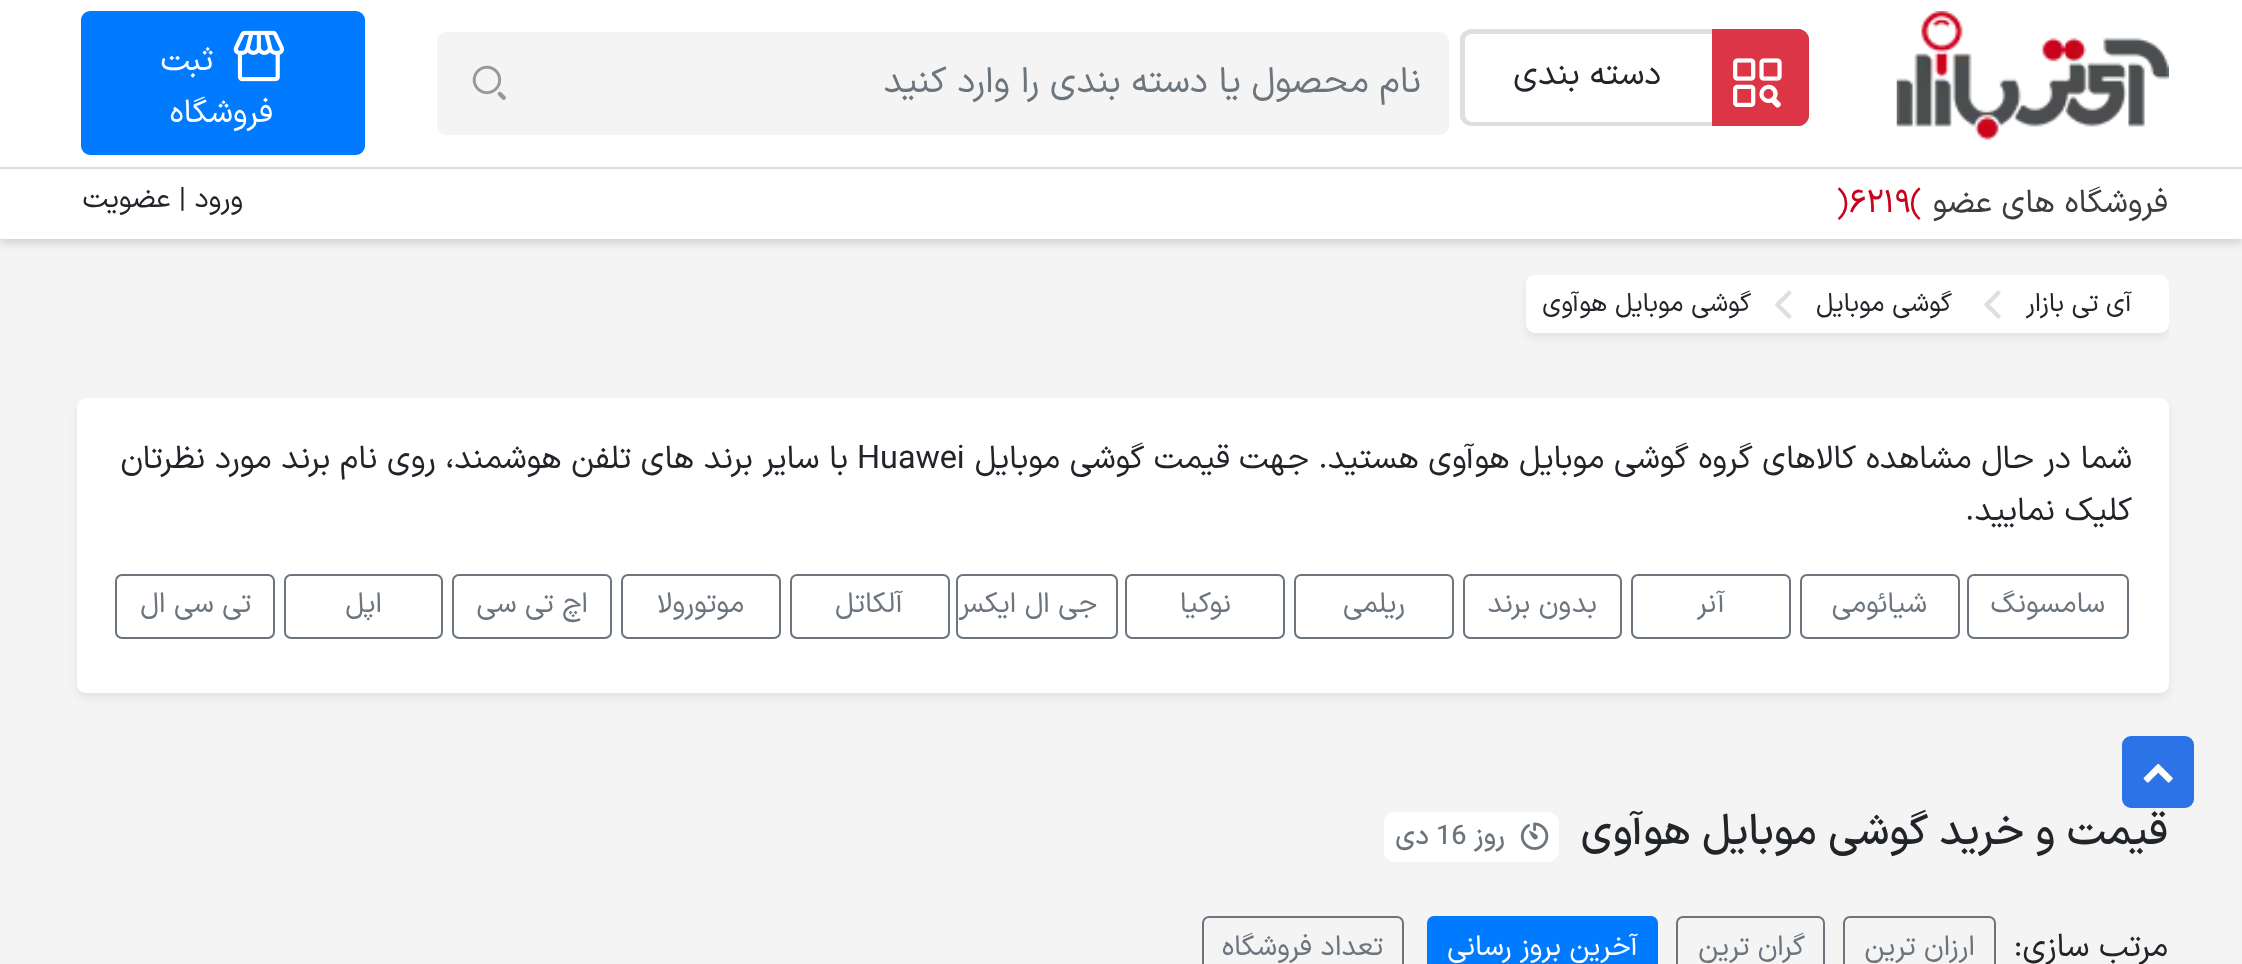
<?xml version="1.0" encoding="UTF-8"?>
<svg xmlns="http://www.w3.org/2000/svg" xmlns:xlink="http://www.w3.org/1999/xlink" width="2242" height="964">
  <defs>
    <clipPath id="clip1"><rect x="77" y="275" width="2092" height="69" /></clipPath>
    <clipPath id="clip2"><rect x="959" y="576" width="157" height="61" rx="5" /></clipPath>
  </defs>
  <rect width="100%" height="100%" fill="#f4f4f4" />
  <rect y="5" width="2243" height="238" fill="#000000" fill-opacity="0.07" filter="blur(4.5px)" />
  <rect width="2242" height="167" fill="#ffffff" />
  <image x="1896" y="11" width="273" height="129" xlink:href="image1.png" />
  <path d="M 1712 29 h 86 c 6 0 11 5 11 11 v 75 c 0 6 -5 11 -11 11 h -86 z" fill="#dc3545" />
  <path d="M 1712 29 h 86 c 6 0 11 5 11 11 v 75 c 0 6 -5 11 -11 11 h -86 z m 0 5 h 86 c 3 0 6 3 6 6 v 75 c 0 3 -3 7 -6 7 h -86 z" fill="#dc3545" fill-rule="evenodd" />
  <image x="1733" y="58" width="49" height="50" xlink:href="image2.png" />
  <path d="M 1472 29 h 240 v 97 h -240 c -7 0 -12 -5 -12 -11 v -75 c 0 -6 5 -11 12 -11 z m 0 5 h 240 v 88 h -240 c -4 0 -7 -4 -7 -7 v -75 c 0 -3 3 -6 7 -6 z" fill="#dfdfdf" fill-rule="evenodd" />
  <rect x="437" y="32" width="1012" height="103" rx="9" fill="#f4f4f4" />
  <image x="472" y="65" width="34" height="35" xlink:href="image3.png" />
  <rect x="82" y="12" width="282" height="142" rx="8" fill="#007bff" stroke="#007bff" stroke-width="2" />
  <image x="233" y="30" width="51" height="52" xlink:href="image4.png" />
  <rect y="171" width="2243" height="72" fill="#000000" fill-opacity="0.07" filter="blur(4.5px)" />
  <rect y="169" width="2242" height="70" fill="#ffffff" />
  <rect y="167" width="2242" height="2" fill="#dcdcdc" />
  <g clip-path="url(#clip1)">
    <rect x="1526" y="279" width="643" height="59" rx="9" fill="#000000" fill-opacity="0.07" filter="blur(4.5px)" />
  </g>
  <rect x="1526" y="275" width="643" height="58" rx="9" fill="#ffffff" />
  <image x="1984" y="290" width="17" height="29" xlink:href="image5.png" />
  <image x="1775" y="290" width="17" height="29" xlink:href="image6.png" />
  <rect x="77" y="403" width="2092" height="295" rx="9" fill="#000000" fill-opacity="0.07" filter="blur(4.5px)" />
  <rect x="77" y="398" width="2092" height="295" rx="9" fill="#ffffff" />
  <rect x="1968" y="575" width="160" height="63" rx="6" fill="none" stroke="#6c757d" stroke-width="2" />
  <rect x="1801" y="575" width="158" height="63" rx="6" fill="none" stroke="#6c757d" stroke-width="2" />
  <rect x="1632" y="575" width="158" height="63" rx="6" fill="none" stroke="#6c757d" stroke-width="2" />
  <rect x="1464" y="575" width="157" height="63" rx="6" fill="none" stroke="#6c757d" stroke-width="2" />
  <rect x="1295" y="575" width="158" height="63" rx="6" fill="none" stroke="#6c757d" stroke-width="2" />
  <rect x="1126" y="575" width="158" height="63" rx="6" fill="none" stroke="#6c757d" stroke-width="2" />
  <rect x="957" y="575" width="160" height="63" rx="6" fill="none" stroke="#6c757d" stroke-width="2" />
  <rect x="791" y="575" width="158" height="63" rx="6" fill="none" stroke="#6c757d" stroke-width="2" />
  <rect x="622" y="575" width="158" height="63" rx="6" fill="none" stroke="#6c757d" stroke-width="2" />
  <rect x="453" y="575" width="158" height="63" rx="6" fill="none" stroke="#6c757d" stroke-width="2" />
  <rect x="285" y="575" width="157" height="63" rx="6" fill="none" stroke="#6c757d" stroke-width="2" />
  <rect x="116" y="575" width="158" height="63" rx="6" fill="none" stroke="#6c757d" stroke-width="2" />
  <rect x="1384" y="812" width="175" height="50" rx="11" fill="#ffffff" />
  <image x="1520" y="822" width="29" height="28" xlink:href="image7.png" />
  <rect x="1844" y="917" width="151" height="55" rx="6" fill="none" stroke="#6c757d" stroke-width="2" />
  <rect x="1677" y="917" width="147" height="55" rx="6" fill="none" stroke="#6c757d" stroke-width="2" />
  <rect x="1428" y="917" width="229" height="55" rx="6" fill="#007bff" stroke="#007bff" stroke-width="2" />
  <rect x="1203" y="917" width="200" height="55" rx="6" fill="none" stroke="#6c757d" stroke-width="2" />
  <rect x="2123" y="737" width="70" height="70" rx="8" fill="#2c73e8" stroke="#2c73e8" stroke-width="2" />
  <image x="2143" y="763" width="30" height="20" xlink:href="image8.png" />
  <text x="1661" y="84" style="font-family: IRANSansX; font-size: 33.75px; direction: rtl; fill: #212529">دسته بندی</text>
  <text x="1421" y="92" style="font-family: IRANSansX; font-size: 36px; direction: rtl; fill: #6c757d">نام محصول یا دسته بندی را وارد کنید</text>
  <text x="213" y="70" style="font-family: IRANSansX; font-size: 32.4px; direction: rtl; fill: #ffffff">ثبت</text>
  <text x="273" y="122" style="font-family: IRANSansX; font-size: 32.4px; direction: rtl; fill: #ffffff">فروشگاه</text>
  <text x="2168" y="212" style="font-family: IRANSansX; font-size: 32.4px; direction: rtl; fill: #3d3d3d">فروشگاه های عضو</text>
  <text x="1910" y="212" style="font-family: IRANSansX; font-size: 32.4px; fill: #c8041c">(</text>
  <text x="1849" y="212" style="font-family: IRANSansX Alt; font-size: 32.4px; fill: #c8041c">6219</text>
  <text x="1836" y="212" style="font-family: IRANSansX; font-size: 32.4px; fill: #c8041c">)</text>
  <text x="243" y="207" style="font-family: IRANSansX; font-size: 28.25px; direction: rtl; fill: #212529">ورود | عضویت</text>
  <text x="2132" y="311" style="font-family: IRANSansX; font-size: 26px; direction: rtl; fill: #212529">آی تی بازار</text>
  <text x="1952" y="311" style="font-family: IRANSansX; font-size: 26px; direction: rtl; fill: #212529">گوشی موبایل</text>
  <text x="1751" y="311" style="font-family: IRANSansX; font-size: 26px; direction: rtl; fill: #212529">گوشی موبایل هوآوی</text>
  <text x="2132" y="468" style="font-family: IRANSansX; font-size: 32.4px; direction: rtl; fill: #212529">شما در حال مشاهده کالاهای گروه گوشی موبایل هوآوی هستید. جهت</text>
  <text x="1230" y="468" style="font-family: IRANSansX; font-size: 32.4px; direction: rtl; fill: #212529">قیمت گوشی موبایل</text>
  <text x="857" y="468" style="font-family: IRANSansX; font-size: 32.4px; fill: #212529">Huawei</text>
  <text x="848" y="468" style="font-family: IRANSansX; font-size: 32.4px; direction: rtl; fill: #212529">با سایر برند های تلفن هوشمند، روی نام برند مورد نظرتان</text>
  <text x="2132" y="520" style="font-family: IRANSansX; font-size: 32.4px; direction: rtl; fill: #212529">کلیک نمایید.</text>
  <text x="2105" y="612" style="font-family: IRANSansX; font-size: 28.25px; direction: rtl; fill: #6c757d">سامسونگ</text>
  <text x="1927" y="612" style="font-family: IRANSansX; font-size: 28.25px; direction: rtl; fill: #6c757d">شیائومی</text>
  <text x="1725" y="612" style="font-family: IRANSansX; font-size: 28.25px; direction: rtl; fill: #6c757d">آنر</text>
  <text x="1597" y="612" style="font-family: IRANSansX; font-size: 28.25px; direction: rtl; fill: #6c757d">بدون برند</text>
  <text x="1405" y="612" style="font-family: IRANSansX; font-size: 28.25px; direction: rtl; fill: #6c757d">ریلمی</text>
  <text x="1231" y="612" style="font-family: IRANSansX; font-size: 28.25px; direction: rtl; fill: #6c757d">نوکیا</text>
  <g clip-path="url(#clip2)">
    <text x="1097" y="612" style="font-family: IRANSansX; font-size: 28.25px; direction: rtl; fill: #6c757d">جی ال ایکس</text>
  </g>
  <text x="903" y="612" style="font-family: IRANSansX; font-size: 28.25px; direction: rtl; fill: #6c757d">آلکاتل</text>
  <text x="744" y="612" style="font-family: IRANSansX; font-size: 28.25px; direction: rtl; fill: #6c757d">موتورولا</text>
  <text x="588" y="612" style="font-family: IRANSansX; font-size: 28.25px; direction: rtl; fill: #6c757d">اچ تی سی</text>
  <text x="382" y="612" style="font-family: IRANSansX; font-size: 28.25px; direction: rtl; fill: #6c757d">اپل</text>
  <text x="251" y="612" style="font-family: IRANSansX; font-size: 28.25px; direction: rtl; fill: #6c757d">تی سی ال</text>
  <text x="2168" y="844" style="font-family: IRANSansX; font-size: 42.75px; font-weight: 500; direction: rtl; fill: #212529">قیمت و خرید گوشی موبایل هوآوی</text>
  <text x="1505" y="844" style="font-family: IRANSansX; font-size: 27px; font-weight: 500; direction: rtl; fill: #6c757d">روز</text>
  <text x="1436" y="844" style="font-family: IRANSansX; font-size: 27px; font-weight: 500; fill: #6c757d">16</text>
  <text x="1429" y="844" style="font-family: IRANSansX; font-size: 27px; font-weight: 500; direction: rtl; fill: #6c757d">دی</text>
  <text x="2168" y="956" style="font-family: IRANSansX; font-size: 32.4px; direction: rtl; fill: #212529">مرتب سازی:</text>
  <text x="1975" y="955" style="font-family: IRANSansX; font-size: 28.25px; direction: rtl; fill: #6c757d">ارزان ترین</text>
  <text x="1805" y="955" style="font-family: IRANSansX; font-size: 28.25px; direction: rtl; fill: #6c757d">گران ترین</text>
  <text x="1638" y="955" style="font-family: IRANSansX; font-size: 28.25px; direction: rtl; fill: #ffffff">آخرین بروز رسانی</text>
  <text x="1383" y="955" style="font-family: IRANSansX; font-size: 28.25px; direction: rtl; fill: #6c757d">تعداد</text>
  <text x="1312" y="955" style="font-family: IRANSansX; font-size: 28.25px; direction: rtl; fill: #6c757d">فروشگاه</text>
</svg>
